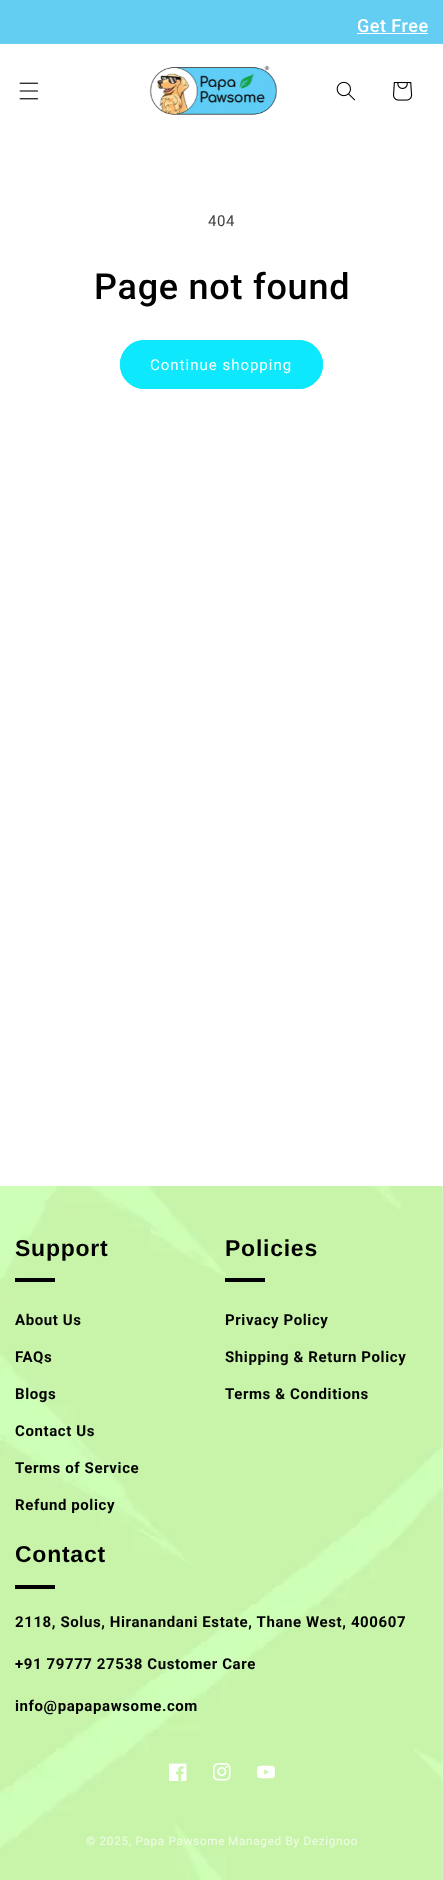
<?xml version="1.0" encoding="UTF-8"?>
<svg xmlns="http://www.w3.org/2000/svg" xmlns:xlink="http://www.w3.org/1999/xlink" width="443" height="1880">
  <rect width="100%" height="100%" fill="#ffffff" />
  <rect width="443" height="43" fill="#64cdf2" />
  <rect y="43" width="443" height="1" fill="#70d1f3" />
  <rect x="357" y="33" width="71" height="1" fill="#ffffff" />
  <image x="19" y="82" width="20" height="18" xlink:href="image1.png" />
  <image x="149" y="66" width="128" height="49" xlink:href="image2.png" />
  <image x="336" y="81" width="19" height="20" xlink:href="image3.png" />
  <image x="393" y="82" width="20" height="19" xlink:href="image4.png" />
  <rect x="120" y="340" width="203" height="49" rx="24.5" fill="#0de8fd" />
  <rect x="121" y="341" width="201" height="47" rx="23.5" fill="none" stroke="#0de8fd" stroke-width="2" />
  <image x="0" y="1186" width="443" height="694" xlink:href="image5.png" />
  <rect x="15" y="1278" width="40" height="4" fill="#000000" />
  <rect x="225" y="1278" width="40" height="4" fill="#000000" />
  <rect x="15" y="1585" width="40" height="4" fill="#000000" />
  <image x="169" y="1763" width="18" height="18" xlink:href="image6.png" />
  <image x="213" y="1763" width="18" height="18" xlink:href="image7.png" />
  <image x="257" y="1765" width="18" height="14" xlink:href="image8.png" />
  <text x="357" y="32" style="font-family: Roboto; font-size: 18px; font-weight: 500; letter-spacing: 0.5px; fill: #ffffff">Get Free</text>
  <text x="208" y="226" style="font-family: Roboto; font-size: 15px; letter-spacing: 0.6px; fill: #404040">404</text>
  <text x="94" y="299" style="font-family: Roboto; font-size: 36px; font-weight: 500; letter-spacing: 0.75px; fill: #000000">Page not found</text>
  <text x="150" y="370" style="font-family: Roboto; font-size: 15px; letter-spacing: 1px; fill: #ffffff">Continue shopping</text>
  <text x="15" y="1256" style="font-family: Liberation Sans; font-size: 23px; font-weight: bold; letter-spacing: 0.75px; fill: #000000">Support</text>
  <text x="15" y="1325" style="font-family: Roboto; font-size: 15px; font-weight: bold; letter-spacing: 0.6px; fill: #000000">About Us</text>
  <text x="15" y="1362" style="font-family: Roboto; font-size: 15px; font-weight: bold; letter-spacing: 0.6px; fill: #000000">FAQs</text>
  <text x="15" y="1399" style="font-family: Roboto; font-size: 15px; font-weight: bold; letter-spacing: 0.6px; fill: #000000">Blogs</text>
  <text x="15" y="1436" style="font-family: Roboto; font-size: 15px; font-weight: bold; letter-spacing: 0.6px; fill: #000000">Contact Us</text>
  <text x="15" y="1473" style="font-family: Roboto; font-size: 15px; font-weight: bold; letter-spacing: 0.6px; fill: #000000">Terms of Service</text>
  <text x="15" y="1510" style="font-family: Roboto; font-size: 15px; font-weight: bold; letter-spacing: 0.6px; fill: #000000">Refund policy</text>
  <text x="225" y="1256" style="font-family: Liberation Sans; font-size: 23px; font-weight: bold; letter-spacing: 0.75px; fill: #000000">Policies</text>
  <text x="225" y="1325" style="font-family: Roboto; font-size: 15px; font-weight: bold; letter-spacing: 0.6px; fill: #000000">Privacy Policy</text>
  <text x="225" y="1362" style="font-family: Roboto; font-size: 15px; font-weight: bold; letter-spacing: 0.6px; fill: #000000">Shipping &amp; Return Policy</text>
  <text x="225" y="1399" style="font-family: Roboto; font-size: 15px; font-weight: bold; letter-spacing: 0.6px; fill: #000000">Terms &amp; Conditions</text>
  <text x="15" y="1562" style="font-family: Liberation Sans; font-size: 23px; font-weight: bold; letter-spacing: 0.75px; fill: #000000">Contact</text>
  <text x="15" y="1627" style="font-family: Roboto; font-size: 15px; font-weight: bold; letter-spacing: 0.6px; fill: #000000">2118, Solus, Hiranandani Estate, Thane West, 400607</text>
  <text x="15" y="1669" style="font-family: Roboto; font-size: 15px; font-weight: bold; letter-spacing: 0.6px; fill: #000000">+91 79777 27538 Customer Care</text>
  <text x="15" y="1711" style="font-family: Roboto; font-size: 15px; font-weight: bold; letter-spacing: 0.6px; fill: #000000">info@papapawsome.com</text>
  <text x="86" y="1845" style="font-family: Roboto; font-size: 11.75px; letter-spacing: 0.7px; fill: #f1fcea">© 2025, Papa Pawsome</text>
  <text x="228" y="1845" style="font-family: Roboto; font-size: 11.75px; letter-spacing: 0.7px; fill: #f1fcea">Managed By Dezignoo</text>
</svg>
